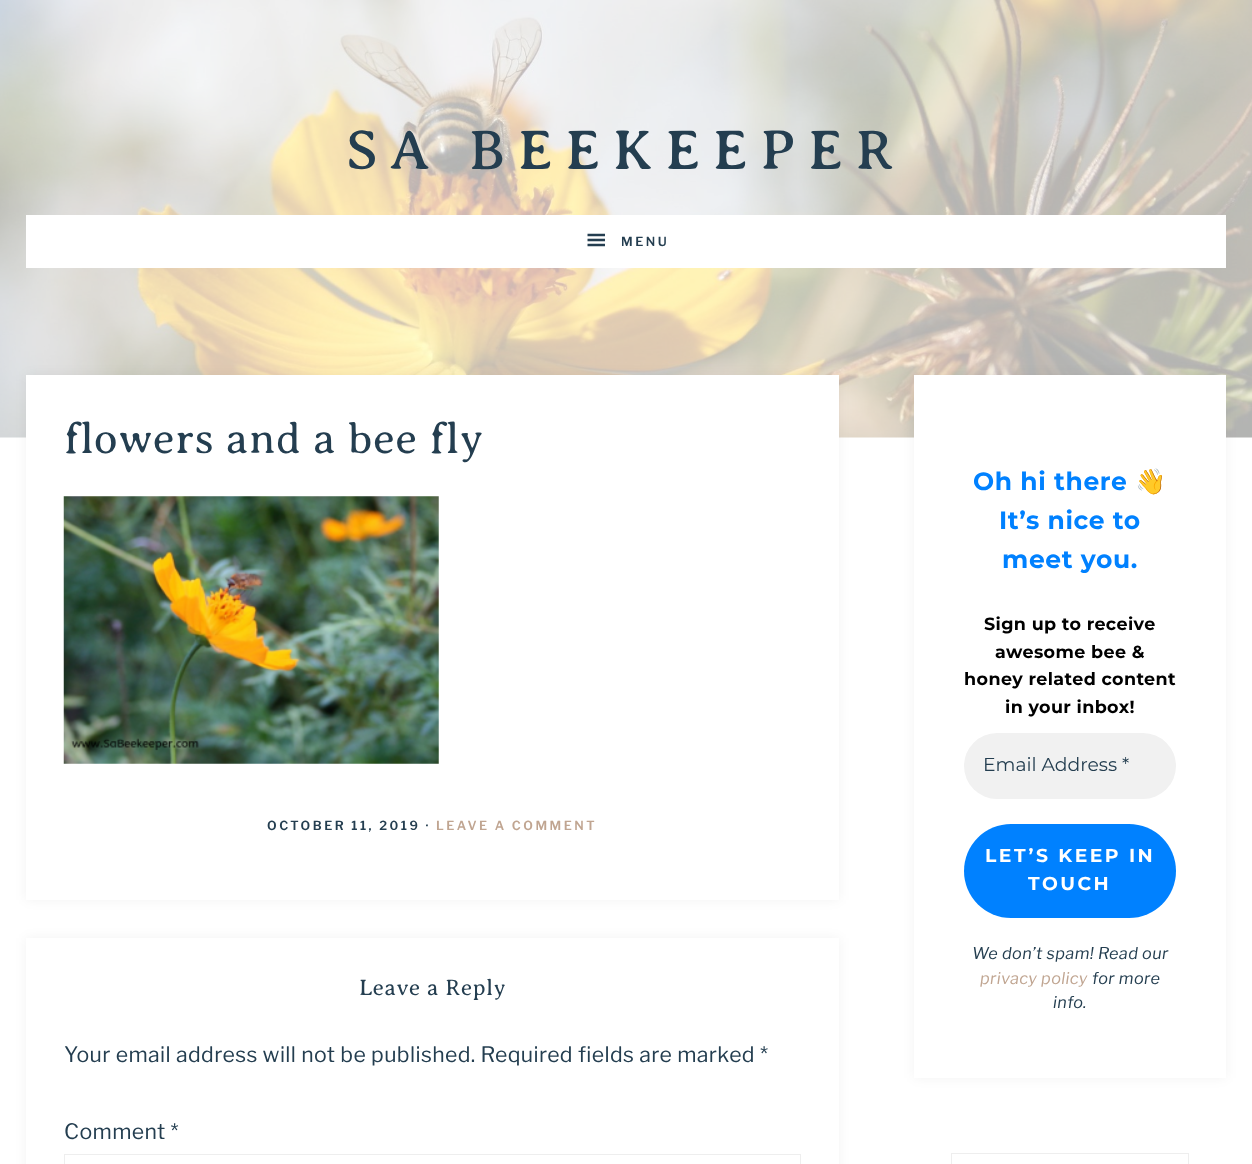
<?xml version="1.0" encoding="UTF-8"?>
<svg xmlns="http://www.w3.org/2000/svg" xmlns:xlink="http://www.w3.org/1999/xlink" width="1252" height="1164">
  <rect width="100%" height="100%" fill="#ffffff" />
  <image x="0" y="0" width="1252" height="438" xlink:href="image1.png" />
  <rect x="26" y="215" width="1200" height="53" fill="#ffffff" />
  <image x="587" y="233" width="18" height="14" xlink:href="image2.png" />
  <rect x="26" y="375" width="813" height="525" fill="#000000" fill-opacity="0.05" filter="blur(6px)" />
  <rect x="26" y="375" width="813" height="525" fill="#ffffff" />
  <image x="63" y="496" width="376" height="268" xlink:href="image3.png" />
  <rect x="26" y="938" width="813" height="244" fill="#000000" fill-opacity="0.05" filter="blur(6px)" />
  <rect x="26" y="938" width="813" height="226" fill="#ffffff" />
  <rect x="64.5" y="1154.5" width="736" height="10" fill="none" stroke="#eeeeee" />
  <rect x="914" y="375" width="312" height="703" fill="#000000" fill-opacity="0.05" filter="blur(6px)" />
  <rect x="914" y="375" width="312" height="703" fill="#ffffff" />
  <rect x="964" y="733" width="212" height="66" rx="33" fill="#f1f1f1" />
  <rect x="964" y="824" width="212" height="94" rx="47" fill="#0081ff" />
  <rect x="951.5" y="1153.5" width="237" height="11" fill="none" stroke="#eeeeee" />
  <text x="346" y="169" style="font-family: Averia Serif Libre; font-size: 56.25px; letter-spacing: 12.5px; fill: #243e50">SA BEEKEEPER</text>
  <text x="621" y="246" style="font-family: Libre Franklin; font-size: 12.5px; font-weight: 600; letter-spacing: 2.5px; fill: #243e50">MENU</text>
  <text x="64" y="453" style="font-family: Averia Serif Libre; font-size: 43.75px; font-weight: 300; letter-spacing: 0.6px; fill: #243e50">flowers and a bee fly</text>
  <text x="267" y="830" style="font-family: Libre Franklin; font-size: 12.5px; font-weight: 600; letter-spacing: 2.5px; fill: #243e50">OCTOBER 11, 2019 ·</text>
  <text x="436" y="830" style="font-family: Libre Franklin; font-size: 12.5px; font-weight: 600; letter-spacing: 2.5px; fill: #c0a591">LEAVE A COMMENT</text>
  <text x="359" y="995" style="font-family: Averia Serif Libre; font-size: 22.5px; font-weight: 300; letter-spacing: 0.6px; fill: #243e50">Leave a Reply</text>
  <text x="64" y="1062" style="font-family: Libre Franklin; font-size: 21.25px; letter-spacing: 0.38px; fill: #243e50">Your email address will not be published. Required fields are marked *</text>
  <text x="64" y="1139" style="font-family: Libre Franklin; font-size: 21.25px; letter-spacing: 0.38px; fill: #243e50">Comment *</text>
  <text x="973" y="490" style="font-family: Montserrat; font-size: 25px; font-weight: bold; letter-spacing: 0.6px; fill: #0081ff">Oh hi there</text>
  <text x="1135" y="490" style="font-family: Noto Color Emoji; font-size: 25px; font-weight: bold; letter-spacing: 0.6px; fill: #0081ff">👋</text>
  <text x="999" y="529" style="font-family: Montserrat; font-size: 25px; font-weight: bold; letter-spacing: 0.6px; fill: #0081ff">It’s nice to</text>
  <text x="1002" y="568" style="font-family: Montserrat; font-size: 25px; font-weight: bold; letter-spacing: 0.6px; fill: #0081ff">meet you.</text>
  <text x="984" y="630" style="font-family: Montserrat; font-size: 17.5px; font-weight: bold; letter-spacing: 0.38px; fill: #000000">Sign up to receive</text>
  <text x="995" y="658" style="font-family: Montserrat; font-size: 17.5px; font-weight: bold; letter-spacing: 0.38px; fill: #000000">awesome bee &amp;</text>
  <text x="964" y="685" style="font-family: Montserrat; font-size: 17.5px; font-weight: bold; letter-spacing: 0.38px; fill: #000000">honey related content</text>
  <text x="1005" y="713" style="font-family: Montserrat; font-size: 17.5px; font-weight: bold; letter-spacing: 0.38px; fill: #000000">in your inbox!</text>
  <text x="983" y="771" style="font-family: Montserrat; font-size: 18.75px; fill: #243e50">Email Address *</text>
  <text x="985" y="862" style="font-family: Montserrat; font-size: 18.75px; font-weight: bold; letter-spacing: 2.5px; fill: #ffffff">LET’S KEEP IN</text>
  <text x="1028" y="890" style="font-family: Montserrat; font-size: 18.75px; font-weight: bold; letter-spacing: 2.5px; fill: #ffffff">TOUCH</text>
  <text x="972" y="959" style="font-family: Libre Franklin; font-size: 16.25px; font-style: italic; letter-spacing: 0.38px; fill: #243e50">We don’t spam! Read our</text>
  <text x="980" y="984" style="font-family: Libre Franklin; font-size: 16.25px; font-style: italic; letter-spacing: 0.38px; fill: #c0a591">privacy policy</text>
  <text x="1092" y="984" style="font-family: Libre Franklin; font-size: 16.25px; font-style: italic; letter-spacing: 0.38px; fill: #243e50">for more</text>
  <text x="1053" y="1008" style="font-family: Libre Franklin; font-size: 16.25px; font-style: italic; letter-spacing: 0.38px; fill: #243e50">info.</text>
</svg>
